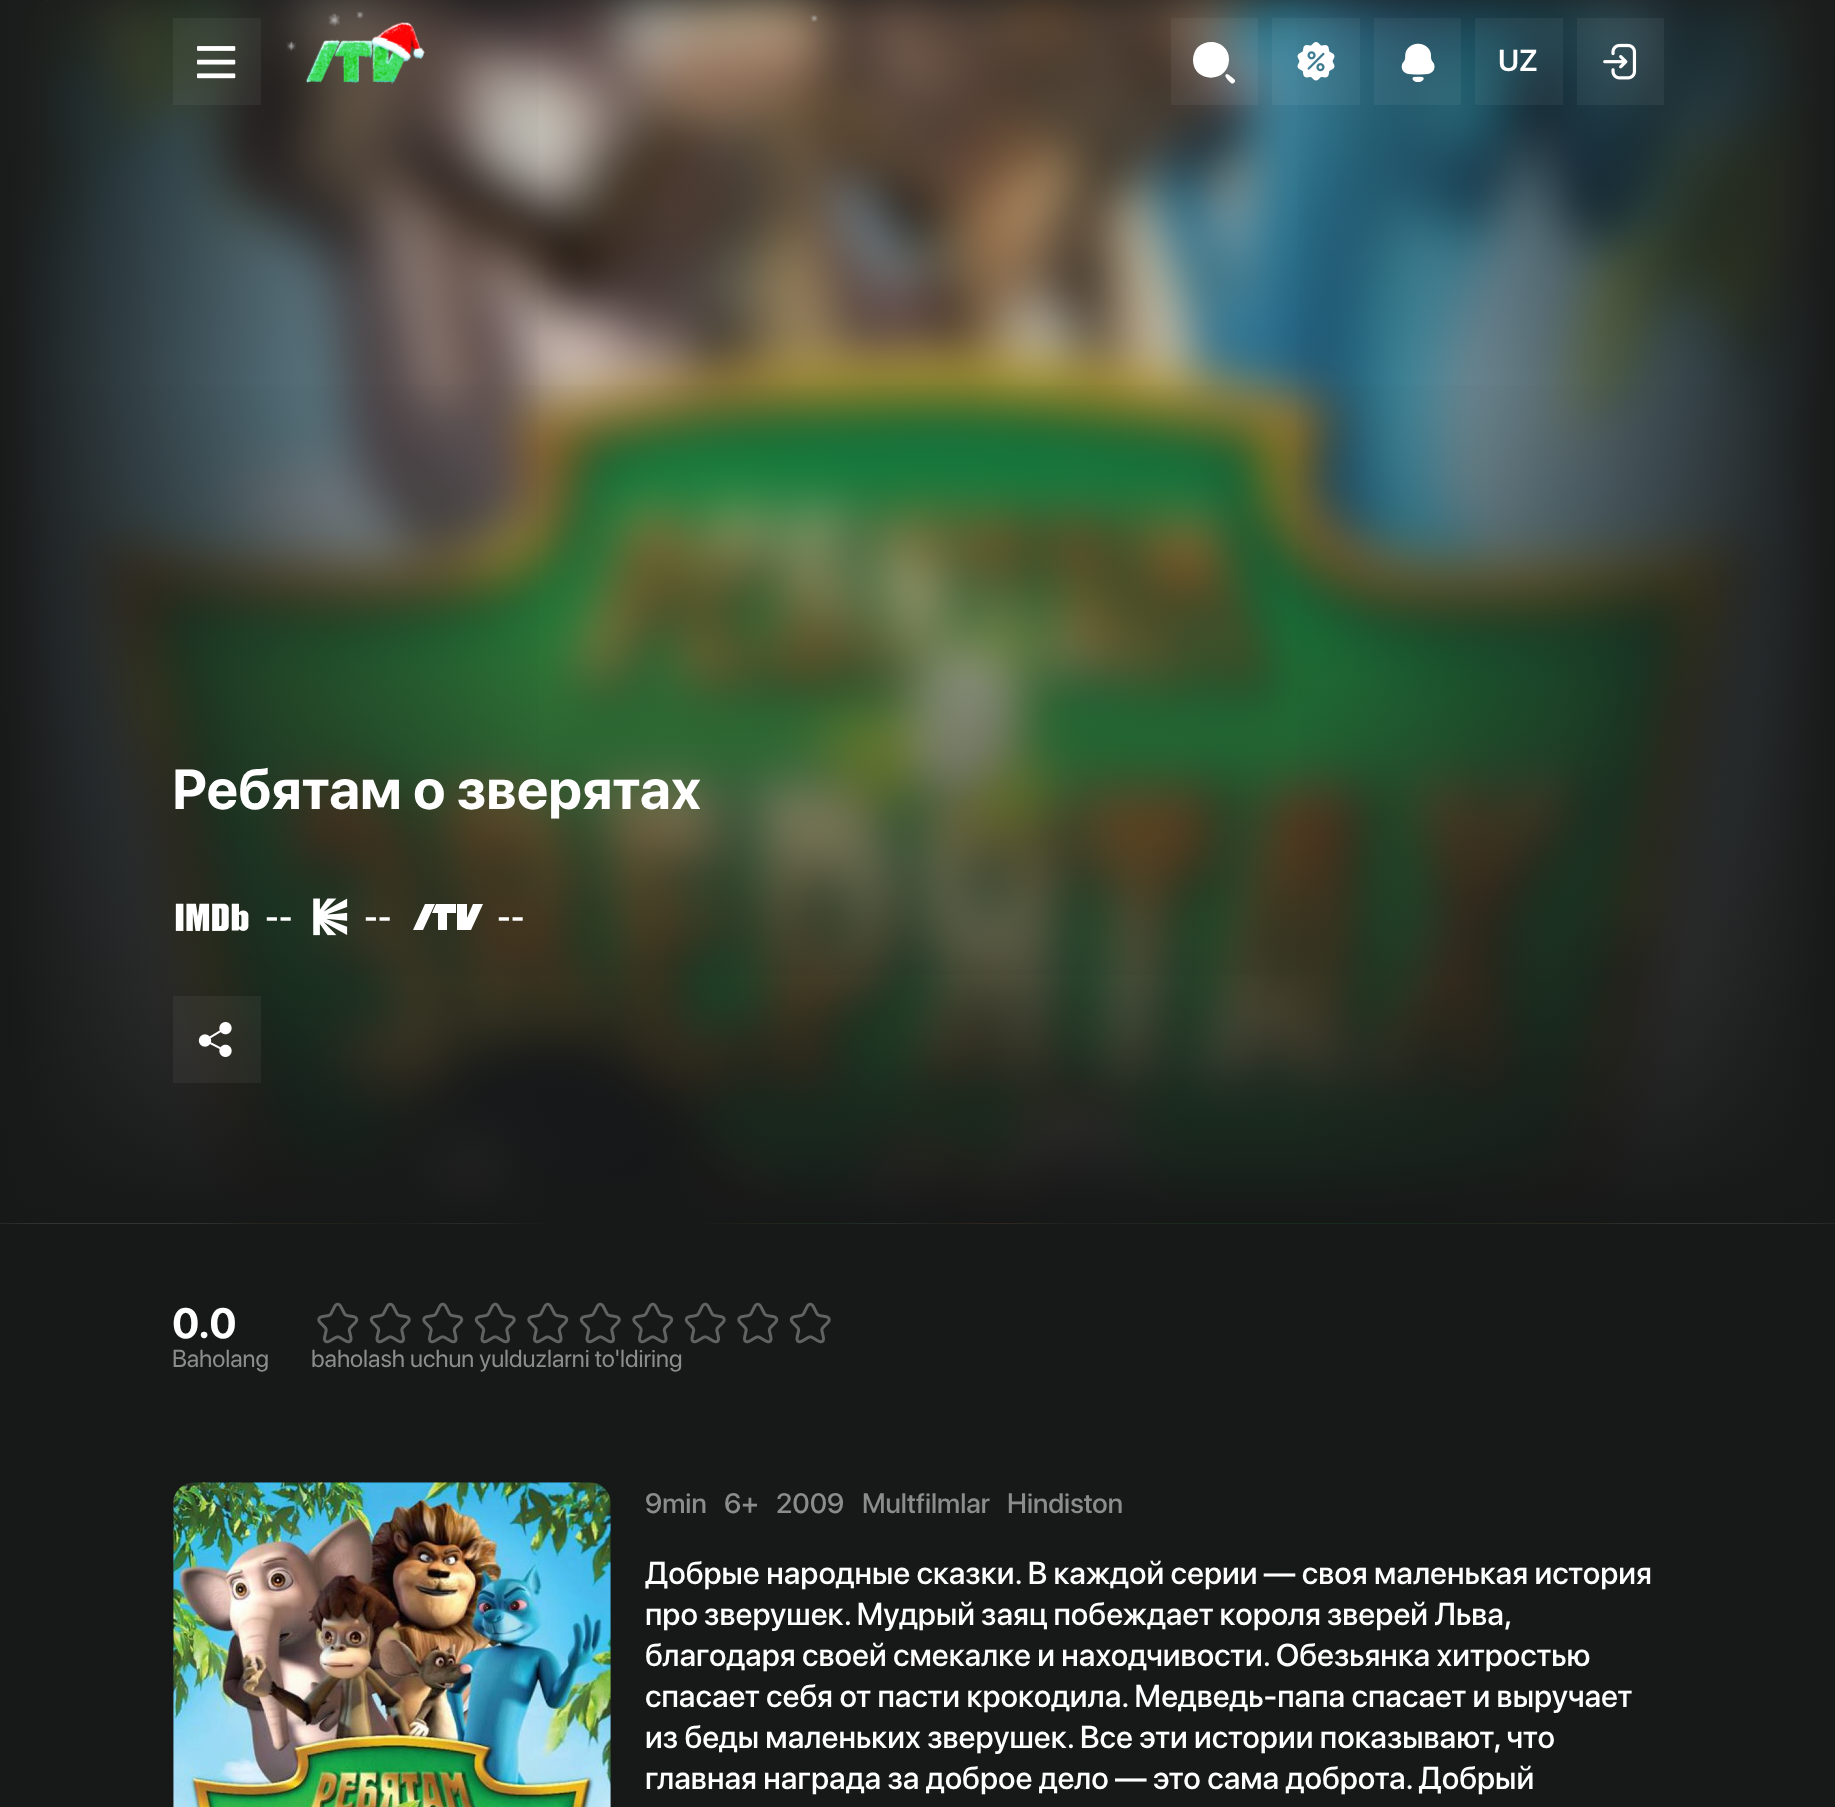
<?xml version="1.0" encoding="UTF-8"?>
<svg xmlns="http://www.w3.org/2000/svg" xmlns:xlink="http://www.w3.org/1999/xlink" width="1835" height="1807">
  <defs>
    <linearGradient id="g1" gradientUnits="userSpaceOnUse" x1="0" y1="612" x2="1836" y2="612"><stop offset="0" stop-color="#171818" /><stop offset="0.3" stop-color="#171818" stop-opacity="0" /></linearGradient>
    <linearGradient id="g2" gradientUnits="userSpaceOnUse" x1="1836" y1="612" x2="0" y2="612"><stop offset="0" stop-color="#171818" /><stop offset="0.3" stop-color="#171818" stop-opacity="0" /></linearGradient>
    <linearGradient id="g3" gradientUnits="userSpaceOnUse" x1="918" y1="1223" x2="918" y2="0"><stop offset="0" stop-color="#171818" /><stop offset="0.7" stop-color="#171818" stop-opacity="0" /></linearGradient>
    <linearGradient id="g4" gradientUnits="userSpaceOnUse" x1="918" y1="0" x2="918" y2="1223"><stop offset="0" stop-color="#212322" stop-opacity="0.3" /><stop offset="1" stop-color="#212322" stop-opacity="0" /></linearGradient>
  </defs>
  <rect width="100%" height="100%" fill="#171818" />
  <image x="0" y="0" width="1835" height="1224" xlink:href="image7.png" />
  <rect width="539" height="1218" fill="url(#g1)" />
  <rect x="1297" width="538" height="1218" fill="url(#g2)" />
  <rect y="385" width="1835" height="838" fill="url(#g3)" />
  <rect width="1835" height="975" fill="url(#g4)" />
  <rect x="173" y="18" width="88" height="87" fill="#ffffff" fill-opacity="0.05" />
  <image x="197" y="46" width="39" height="33" xlink:href="image2.png" />
  <image x="306" y="22" width="119" height="62" xlink:href="image3.png" />
  <image x="46" y="0" width="772" height="51" xlink:href="image1.png" />
  <rect x="1171" y="18" width="87" height="87" fill="#ffffff" fill-opacity="0.05" />
  <path d="M 1193 60 c 0 -5 2 -10 5 -13 c 12 -11 32 -3 31 13 c -1 24 -36 23 -36 0 z m 36 15 l 5 4 c 3 2 -1 6 -3 4 c -1 -1 -9 -8 -4 -9 z" fill="#ffffff" fill-rule="evenodd" />
  <rect x="1272" y="18" width="88" height="87" fill="#ffffff" fill-opacity="0.05" />
  <image x="1297" y="42" width="38" height="39" xlink:href="image4.png" />
  <rect x="1374" y="18" width="87" height="87" fill="#ffffff" fill-opacity="0.05" />
  <image x="1401" y="43" width="34" height="39" xlink:href="image5.png" />
  <rect x="1475" y="18" width="88" height="87" fill="#ffffff" fill-opacity="0.05" />
  <rect x="1577" y="18" width="87" height="87" fill="#ffffff" fill-opacity="0.05" />
  <image x="1603" y="43" width="34" height="37" xlink:href="image6.png" />
  <image x="175" y="903" width="74" height="28" xlink:href="image8.png" />
  <image x="313" y="898" width="35" height="38" xlink:href="image9.png" />
  <path d="M 483 904 l -12 26 h -14 v -26 h 10 v 14 l 6 -14 z m -70 26 h 10 l 12 -26 h -10 z m 43 -26 h -20 l -4 9 h 6 v 17 h 9 v -17 h 9 z" fill="#ffffff" />
  <rect x="173" y="996" width="88" height="87" fill="#ffffff" fill-opacity="0.05" />
  <image x="198" y="1022" width="34" height="35" xlink:href="image10.png" />
  <image x="317" y="1302" width="42" height="42" xlink:href="image11.png" />
  <image x="369" y="1302" width="42" height="42" xlink:href="image12.png" />
  <image x="422" y="1302" width="42" height="42" xlink:href="image11.png" />
  <image x="474" y="1302" width="42" height="42" xlink:href="image12.png" />
  <image x="527" y="1302" width="42" height="42" xlink:href="image11.png" />
  <image x="579" y="1302" width="42" height="42" xlink:href="image12.png" />
  <image x="632" y="1302" width="42" height="42" xlink:href="image11.png" />
  <image x="684" y="1302" width="42" height="42" xlink:href="image12.png" />
  <image x="737" y="1302" width="42" height="42" xlink:href="image11.png" />
  <image x="789" y="1302" width="42" height="42" xlink:href="image12.png" />
  <image x="173" y="1482" width="438" height="325" xlink:href="image13.png" />
  <text x="1498" y="71" style="font-family: SF Pro Display; font-size: 30px; font-weight: 600; fill: #ffffff">UZ</text>
  <text x="172" y="809" style="font-family: SF Pro Display; font-size: 56px; font-weight: bold; fill: #ffffff">Ребятам о зверятах</text>
  <text x="265" y="928" style="font-family: SF Pro Display; font-size: 31.5px; font-weight: 600; fill: #ffffff">--</text>
  <text x="364" y="928" style="font-family: SF Pro Display; font-size: 31.5px; font-weight: 600; fill: #ffffff">--</text>
  <text x="497" y="928" style="font-family: SF Pro Display; font-size: 31.5px; font-weight: 600; fill: #ffffff">--</text>
  <text x="172" y="1338" style="font-family: SF Pro Display; font-size: 42px; font-weight: bold; fill: #ffffff">0.0</text>
  <text x="172" y="1367" style="font-family: SF Pro Display; font-size: 24.5px; fill: #8b8c8c">Baholang</text>
  <text x="311" y="1367" style="font-family: SF Pro Display; font-size: 24.5px; fill: #8b8c8c">baholash uchun yulduzlarni to'ldiring</text>
  <text x="645" y="1513" style="font-family: SF Pro Display; font-size: 28px; font-weight: 500; fill: #8b8c8c">9min</text>
  <text x="724" y="1513" style="font-family: SF Pro Display; font-size: 28px; font-weight: 500; fill: #8b8c8c">6+</text>
  <text x="776" y="1513" style="font-family: SF Pro Display; font-size: 28px; font-weight: 500; fill: #8b8c8c">2009</text>
  <text x="862" y="1513" style="font-family: SF Pro Display; font-size: 28px; font-weight: 500; fill: #8b8c8c">Multfilmlar</text>
  <text x="1007" y="1513" style="font-family: SF Pro Display; font-size: 28px; font-weight: 500; fill: #8b8c8c">Hindiston</text>
  <text x="645" y="1584" style="font-family: SF Pro Display; font-size: 31.5px; font-weight: 500; fill: #ffffff">Добрые народные сказки. В каждой серии — своя маленькая история</text>
  <text x="645" y="1625" word-spacing="-0.25" style="font-family: SF Pro Display; font-size: 31.5px; font-weight: 500; fill: #ffffff">про зверушек. Мудрый заяц побеждает короля зверей Льва,</text>
  <text x="645" y="1666" style="font-family: SF Pro Display; font-size: 31.5px; font-weight: 500; fill: #ffffff">благодаря своей смекалке и находчивости. Обезьянка хитростью</text>
  <text x="645" y="1707" style="font-family: SF Pro Display; font-size: 31.5px; font-weight: 500; fill: #ffffff">спасает себя от пасти крокодила. Медведь-папа спасает и выручает</text>
  <text x="645" y="1748" style="font-family: SF Pro Display; font-size: 31.5px; font-weight: 500; fill: #ffffff">из беды маленьких зверушек. Все эти истории показывают, что</text>
  <text x="645" y="1789" style="font-family: SF Pro Display; font-size: 31.5px; font-weight: 500; fill: #ffffff">главная награда за доброе дело — это сама доброта. Добрый</text>
</svg>
